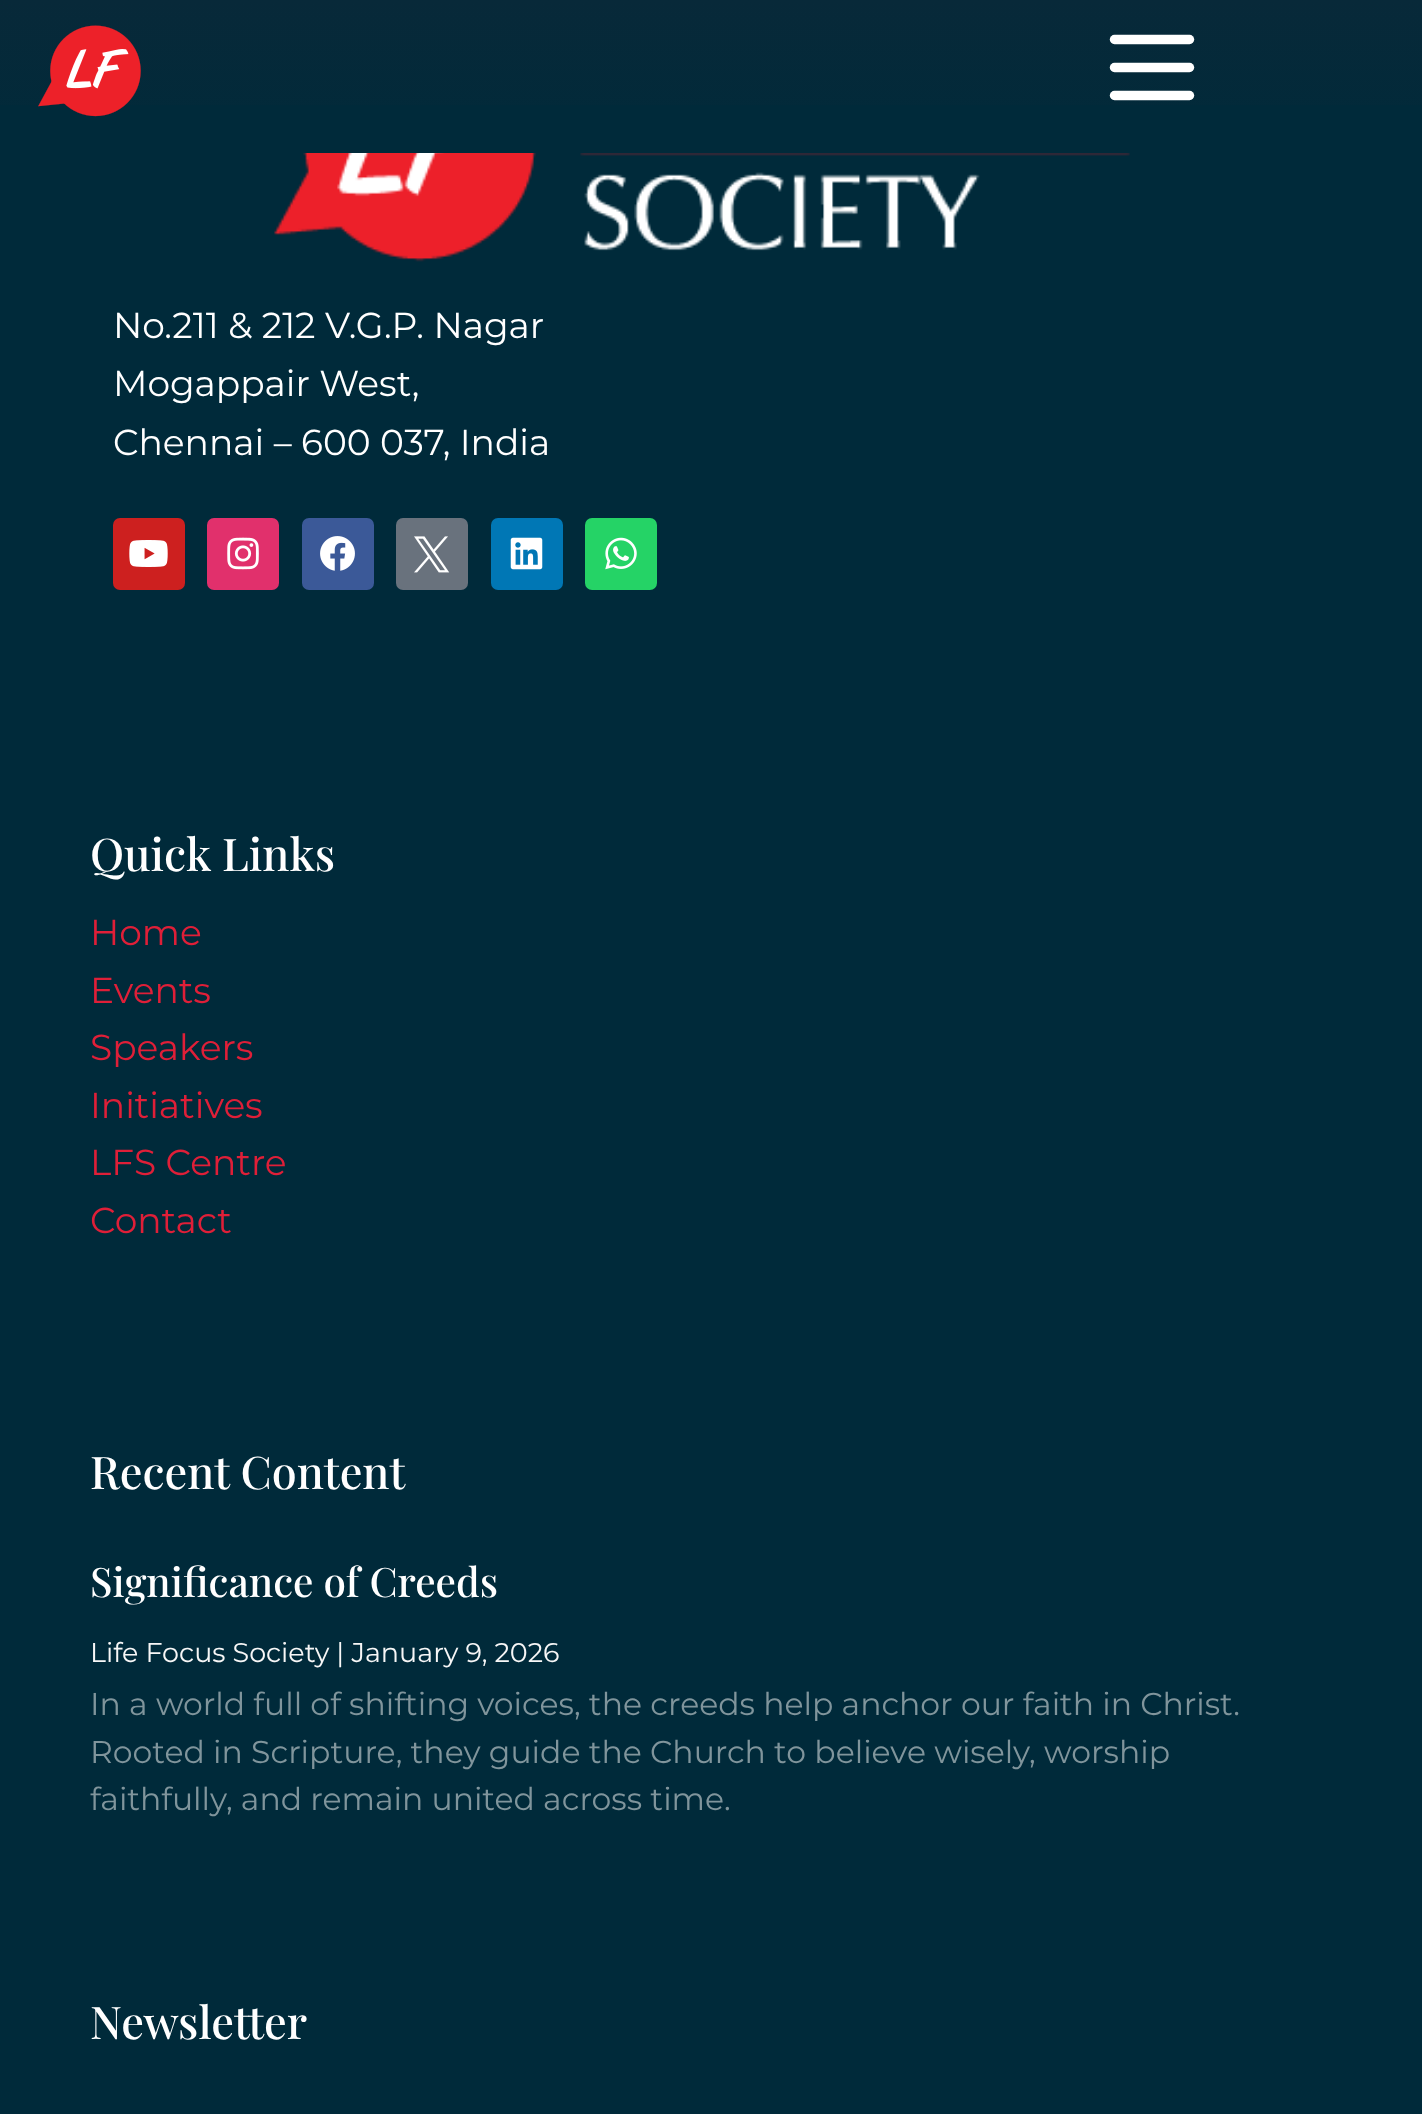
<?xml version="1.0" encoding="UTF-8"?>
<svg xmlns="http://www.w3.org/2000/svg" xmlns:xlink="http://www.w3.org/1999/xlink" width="1422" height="2114">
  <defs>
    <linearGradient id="g1" gradientUnits="userSpaceOnUse" x1="711" y1="0" x2="711" y2="153"><stop offset="0" stop-color="#082939" /><stop offset="1" stop-color="#002a3a" /></linearGradient>
  </defs>
  <rect width="100%" height="100%" fill="#002a3a" />
  <rect width="1422" height="105" fill="url(#g1)" />
  <image x="38" y="25" width="103" height="92" xlink:href="image1.png" />
  <path d="M 1114.5 95.5 h 75" fill="none" stroke="#ffffff" stroke-width="9.4" stroke-linecap="round" />
  <path d="M 1114.5 67.5 h 75" fill="none" stroke="#ffffff" stroke-width="9.4" stroke-linecap="round" />
  <path d="M 1114.5 39.5 h 75" fill="none" stroke="#ffffff" stroke-width="9.4" stroke-linecap="round" />
  <image x="274" y="153" width="856" height="109" xlink:href="image2.png" />
  <rect x="113" y="518" width="72" height="72" rx="7" fill="#cd201f" />
  <image x="129" y="540" width="39" height="27" xlink:href="image3.png" />
  <rect x="207" y="518" width="72" height="72" rx="7" fill="#e1306c" />
  <image x="227" y="537" width="32" height="33" xlink:href="image4.png" />
  <rect x="302" y="518" width="72" height="72" rx="7" fill="#3b5998" />
  <image x="320" y="536" width="35" height="35" xlink:href="image5.png" />
  <rect x="396" y="518" width="72" height="72" rx="7" fill="#69727d" />
  <image x="414" y="536" width="36" height="37" xlink:href="image6.png" />
  <rect x="491" y="518" width="72" height="72" rx="7" fill="#0077b5" />
  <image x="510" y="537" width="33" height="33" xlink:href="image7.png" />
  <rect x="585" y="518" width="72" height="72" rx="7" fill="#25d366" />
  <image x="605" y="537" width="32" height="33" xlink:href="image8.png" />
  <text x="113" y="338" style="font-family: Montserrat; font-size: 36px; fill: #ffffff">No.211 &amp; 212 V.G.P. Nagar</text>
  <text x="113" y="396" style="font-family: Montserrat; font-size: 36px; fill: #ffffff">Mogappair West,</text>
  <text x="113" y="455" style="font-family: Montserrat; font-size: 36px; fill: #ffffff">Chennai – 600 037, India</text>
  <text x="90" y="871" style="font-family: Playfair Display; font-size: 45px; font-weight: 500; fill: #ffffff">Quick Links</text>
  <text x="90" y="945" style="font-family: Montserrat; font-size: 36px; fill: #df1f38">Home</text>
  <text x="90" y="1003" style="font-family: Montserrat; font-size: 36px; fill: #df1f38">Events</text>
  <text x="90" y="1060" style="font-family: Montserrat; font-size: 36px; fill: #df1f38">Speakers</text>
  <text x="90" y="1118" style="font-family: Montserrat; font-size: 36px; fill: #df1f38">Initiatives</text>
  <text x="90" y="1175" style="font-family: Montserrat; font-size: 36px; fill: #df1f38">LFS Centre</text>
  <text x="90" y="1233" style="font-family: Montserrat; font-size: 36px; fill: #df1f38">Contact</text>
  <text x="90" y="1489" style="font-family: Playfair Display; font-size: 45px; font-weight: 500; fill: #ffffff">Recent Content</text>
  <text x="90" y="1597" style="font-family: Playfair Display; font-size: 40.5px; font-weight: 500; fill: #ffffff">Significance of Creeds</text>
  <text x="90" y="1662" style="font-family: Montserrat; font-size: 27px; fill: #f7f7f7">Life Focus Society | January 9, 2026</text>
  <text x="90" y="1715" style="font-family: Montserrat; font-size: 31.5px; fill: #80959c">In a world full of shifting voices, the creeds help anchor our faith in Christ.</text>
  <text x="90" y="1763" style="font-family: Montserrat; font-size: 31.5px; fill: #80959c">Rooted in Scripture, they guide the Church to believe wisely, worship</text>
  <text x="90" y="1810" style="font-family: Montserrat; font-size: 31.5px; fill: #80959c">faithfully, and remain united across time.</text>
  <text x="90" y="2039" style="font-family: Playfair Display; font-size: 45px; font-weight: 500; fill: #ffffff">Newsletter</text>
</svg>
